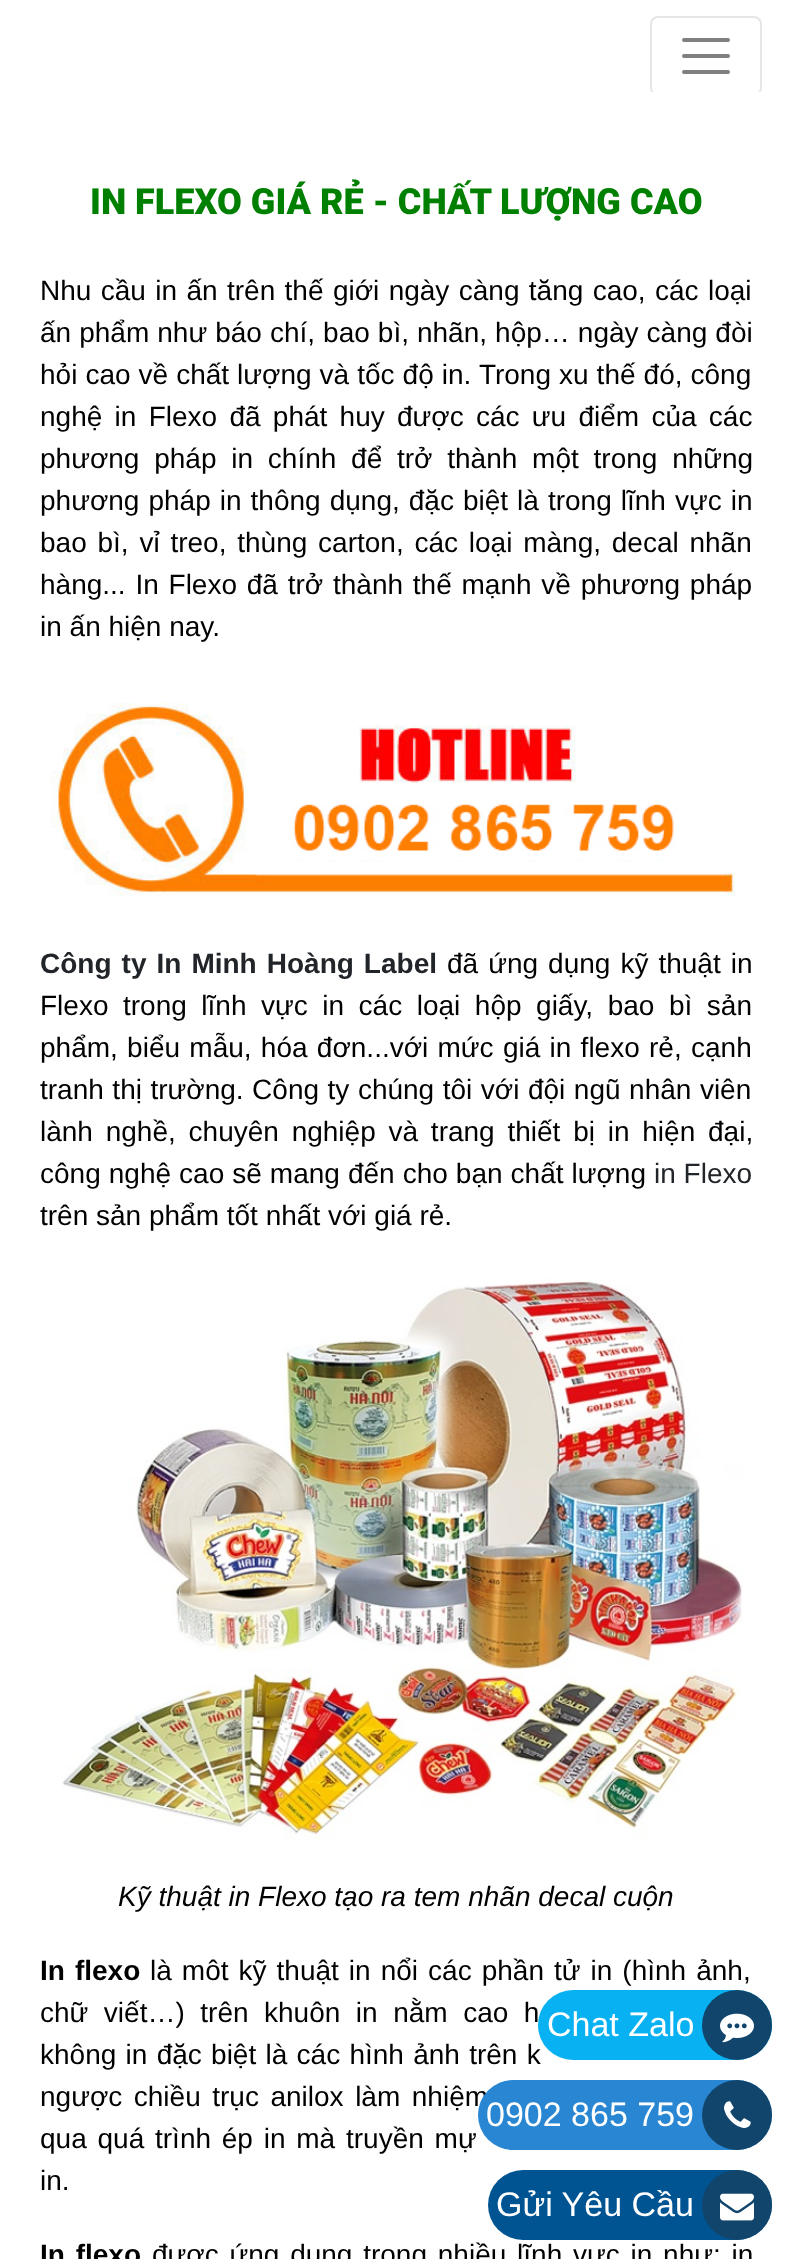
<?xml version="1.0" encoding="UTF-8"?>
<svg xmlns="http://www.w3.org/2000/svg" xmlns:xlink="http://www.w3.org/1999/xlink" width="792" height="2259">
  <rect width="100%" height="100%" fill="#ffffff" />
  <rect x="651" y="17" width="110" height="78" rx="7" fill="none" stroke="#e6e6e6" stroke-width="2" />
  <path d="M 684 40 h 44 m -44 16 h 44 m -44 16 h 44" fill="none" stroke="#808080" stroke-width="4" stroke-linecap="round" />
  <rect x="651" y="92" width="110" height="4" fill="#ffffff" />
  <image x="51" y="702" width="684" height="194" xlink:href="image1.png" />
  <image x="61" y="1279" width="682" height="563" xlink:href="image2.png" />
  <rect x="488" y="2170" width="284" height="70" rx="35" fill="#005492" />
  <circle cx="737" cy="2205" r="35" fill="#11456c" />
  <image x="720" y="2193" width="34" height="28" xlink:href="image5.png" />
  <text x="90" y="214" style="font-family: Roboto; font-size: 36px; font-weight: 900; fill: #008000">IN FLEXO GIÁ RẺ - CHẤT LƯỢNG CAO</text>
  <text x="40" y="300" word-spacing="1.6" style="font-family: Liberation Sans; font-size: 28px; fill: #000000">Nhu cầu in ấn trên thế giới ngày càng tăng cao, các loại</text>
  <text x="40" y="342" word-spacing="0.25" style="font-family: Liberation Sans; font-size: 28px; fill: #000000">ấn phẩm như báo chí, bao bì, nhãn, hộp… ngày càng đòi</text>
  <text x="40" y="384" word-spacing="0.25" style="font-family: Liberation Sans; font-size: 28px; fill: #000000">hỏi cao về chất lượng và tốc độ in. Trong xu thế đó, công</text>
  <text x="40" y="426" word-spacing="4.5" style="font-family: Liberation Sans; font-size: 28px; fill: #000000">nghệ in Flexo đã phát huy được các ưu điểm của các</text>
  <text x="40" y="468" word-spacing="7" style="font-family: Liberation Sans; font-size: 28px; fill: #000000">phương pháp in chính để trở thành một trong những</text>
  <text x="40" y="510" word-spacing="1.25" style="font-family: Liberation Sans; font-size: 28px; fill: #000000">phương pháp in thông dụng, đặc biệt là trong lĩnh vực in</text>
  <text x="40" y="552" word-spacing="3" style="font-family: Liberation Sans; font-size: 28px; fill: #000000">bao bì, vỉ treo, thùng carton, các loại màng, decal nhãn</text>
  <text x="40" y="594" word-spacing="2" style="font-family: Liberation Sans; font-size: 28px; fill: #000000">hàng... In Flexo đã trở thành thế mạnh về phương pháp</text>
  <text x="40" y="636" style="font-family: Liberation Sans; font-size: 28px; fill: #000000">in ấn hiện nay.</text>
  <text x="40" y="973" word-spacing="2.25" style="font-family: Liberation Sans; font-size: 28px; font-weight: bold; fill: #212529">Công ty In Minh Hoàng Label</text>
  <text x="447" y="973" word-spacing="2.25" style="font-family: Liberation Sans; font-size: 28px; fill: #000000">đã ứng dụng kỹ thuật in</text>
  <text x="40" y="1015" word-spacing="6.75" style="font-family: Liberation Sans; font-size: 28px; fill: #000000">Flexo trong lĩnh vực in các loại hộp giấy, bao bì sản</text>
  <text x="40" y="1057" word-spacing="1.5" style="font-family: Liberation Sans; font-size: 28px; fill: #000000">phẩm, biểu mẫu, hóa đơn...với mức giá in flexo rẻ, cạnh</text>
  <text x="40" y="1099" word-spacing="0.75" style="font-family: Liberation Sans; font-size: 28px; fill: #000000">tranh thị trường. Công ty chúng tôi với đội ngũ nhân viên</text>
  <text x="40" y="1141" word-spacing="5" style="font-family: Liberation Sans; font-size: 28px; fill: #000000">lành nghề, chuyên nghiệp và trang thiết bị in hiện đại,</text>
  <text x="40" y="1183" word-spacing="0.25" style="font-family: Liberation Sans; font-size: 28px; fill: #000000">công nghệ cao sẽ mang đến cho bạn chất lượng</text>
  <text x="654" y="1183" style="font-family: Liberation Sans; font-size: 28px; fill: #212529">in Flexo</text>
  <text x="40" y="1225" style="font-family: Liberation Sans; font-size: 28px; fill: #000000">trên sản phẩm tốt nhất với giá rẻ.</text>
  <text x="118" y="1906" style="font-family: Liberation Sans; font-size: 28px; font-style: italic; fill: #000000">Kỹ thuật in Flexo tạo ra tem nhãn decal cuộn</text>
  <text x="40" y="1980" word-spacing="2.25" style="font-family: Liberation Sans; font-size: 28px; font-weight: bold; fill: #000000">In flexo</text>
  <text x="150" y="1980" word-spacing="2.25" style="font-family: Liberation Sans; font-size: 28px; fill: #000000">là môt kỹ thuật in nổi các phần tử in (hình ảnh,</text>
  <text x="40" y="2022" word-spacing="7.75" style="font-family: Liberation Sans; font-size: 28px; fill: #000000">chữ viết…) trên khuôn in nằm cao h</text>
  <text x="40" y="2064" word-spacing="1.5" style="font-family: Liberation Sans; font-size: 28px; fill: #000000">không in đặc biệt là các hình ảnh trên k</text>
  <text x="40" y="2106" word-spacing="3.75" style="font-family: Liberation Sans; font-size: 28px; fill: #000000">ngược chiều trục anilox làm nhiệm</text>
  <text x="40" y="2148" word-spacing="3" style="font-family: Liberation Sans; font-size: 28px; fill: #000000">qua quá trình ép in mà truyền mự</text>
  <text x="40" y="2190" style="font-family: Liberation Sans; font-size: 28px; fill: #000000">in.</text>
  <text x="40" y="2264" word-spacing="3" style="font-family: Liberation Sans; font-size: 28px; font-weight: bold; fill: #000000">In flexo</text>
  <text x="152" y="2264" word-spacing="3" style="font-family: Liberation Sans; font-size: 28px; fill: #000000">được ứng dụng trong nhiều lĩnh vực in như: in</text>
  <rect x="538" y="1990" width="234" height="70" rx="35" fill="#08b1f2" />
  <text x="547" y="2036" style="font-family: Liberation Sans; font-size: 34px; fill: #ffffff">Chat Zalo</text>
  <circle cx="737" cy="2025" r="35" fill="#11456c" />
  <image x="720" y="2013" width="34" height="30" xlink:href="image3.png" />
  <rect x="478" y="2080" width="294" height="70" rx="35" fill="#2986d3" />
  <text x="486" y="2126" style="font-family: Liberation Sans; font-size: 34px; fill: #ffffff">0902 865 759</text>
  <circle cx="737" cy="2115" r="35" fill="#11456c" />
  <image x="724" y="2101" width="27" height="27" xlink:href="image4.png" />
  <text x="496" y="2216" style="font-family: Liberation Sans; font-size: 34px; fill: #ffffff">Gửi Yêu Cầu</text>
</svg>
